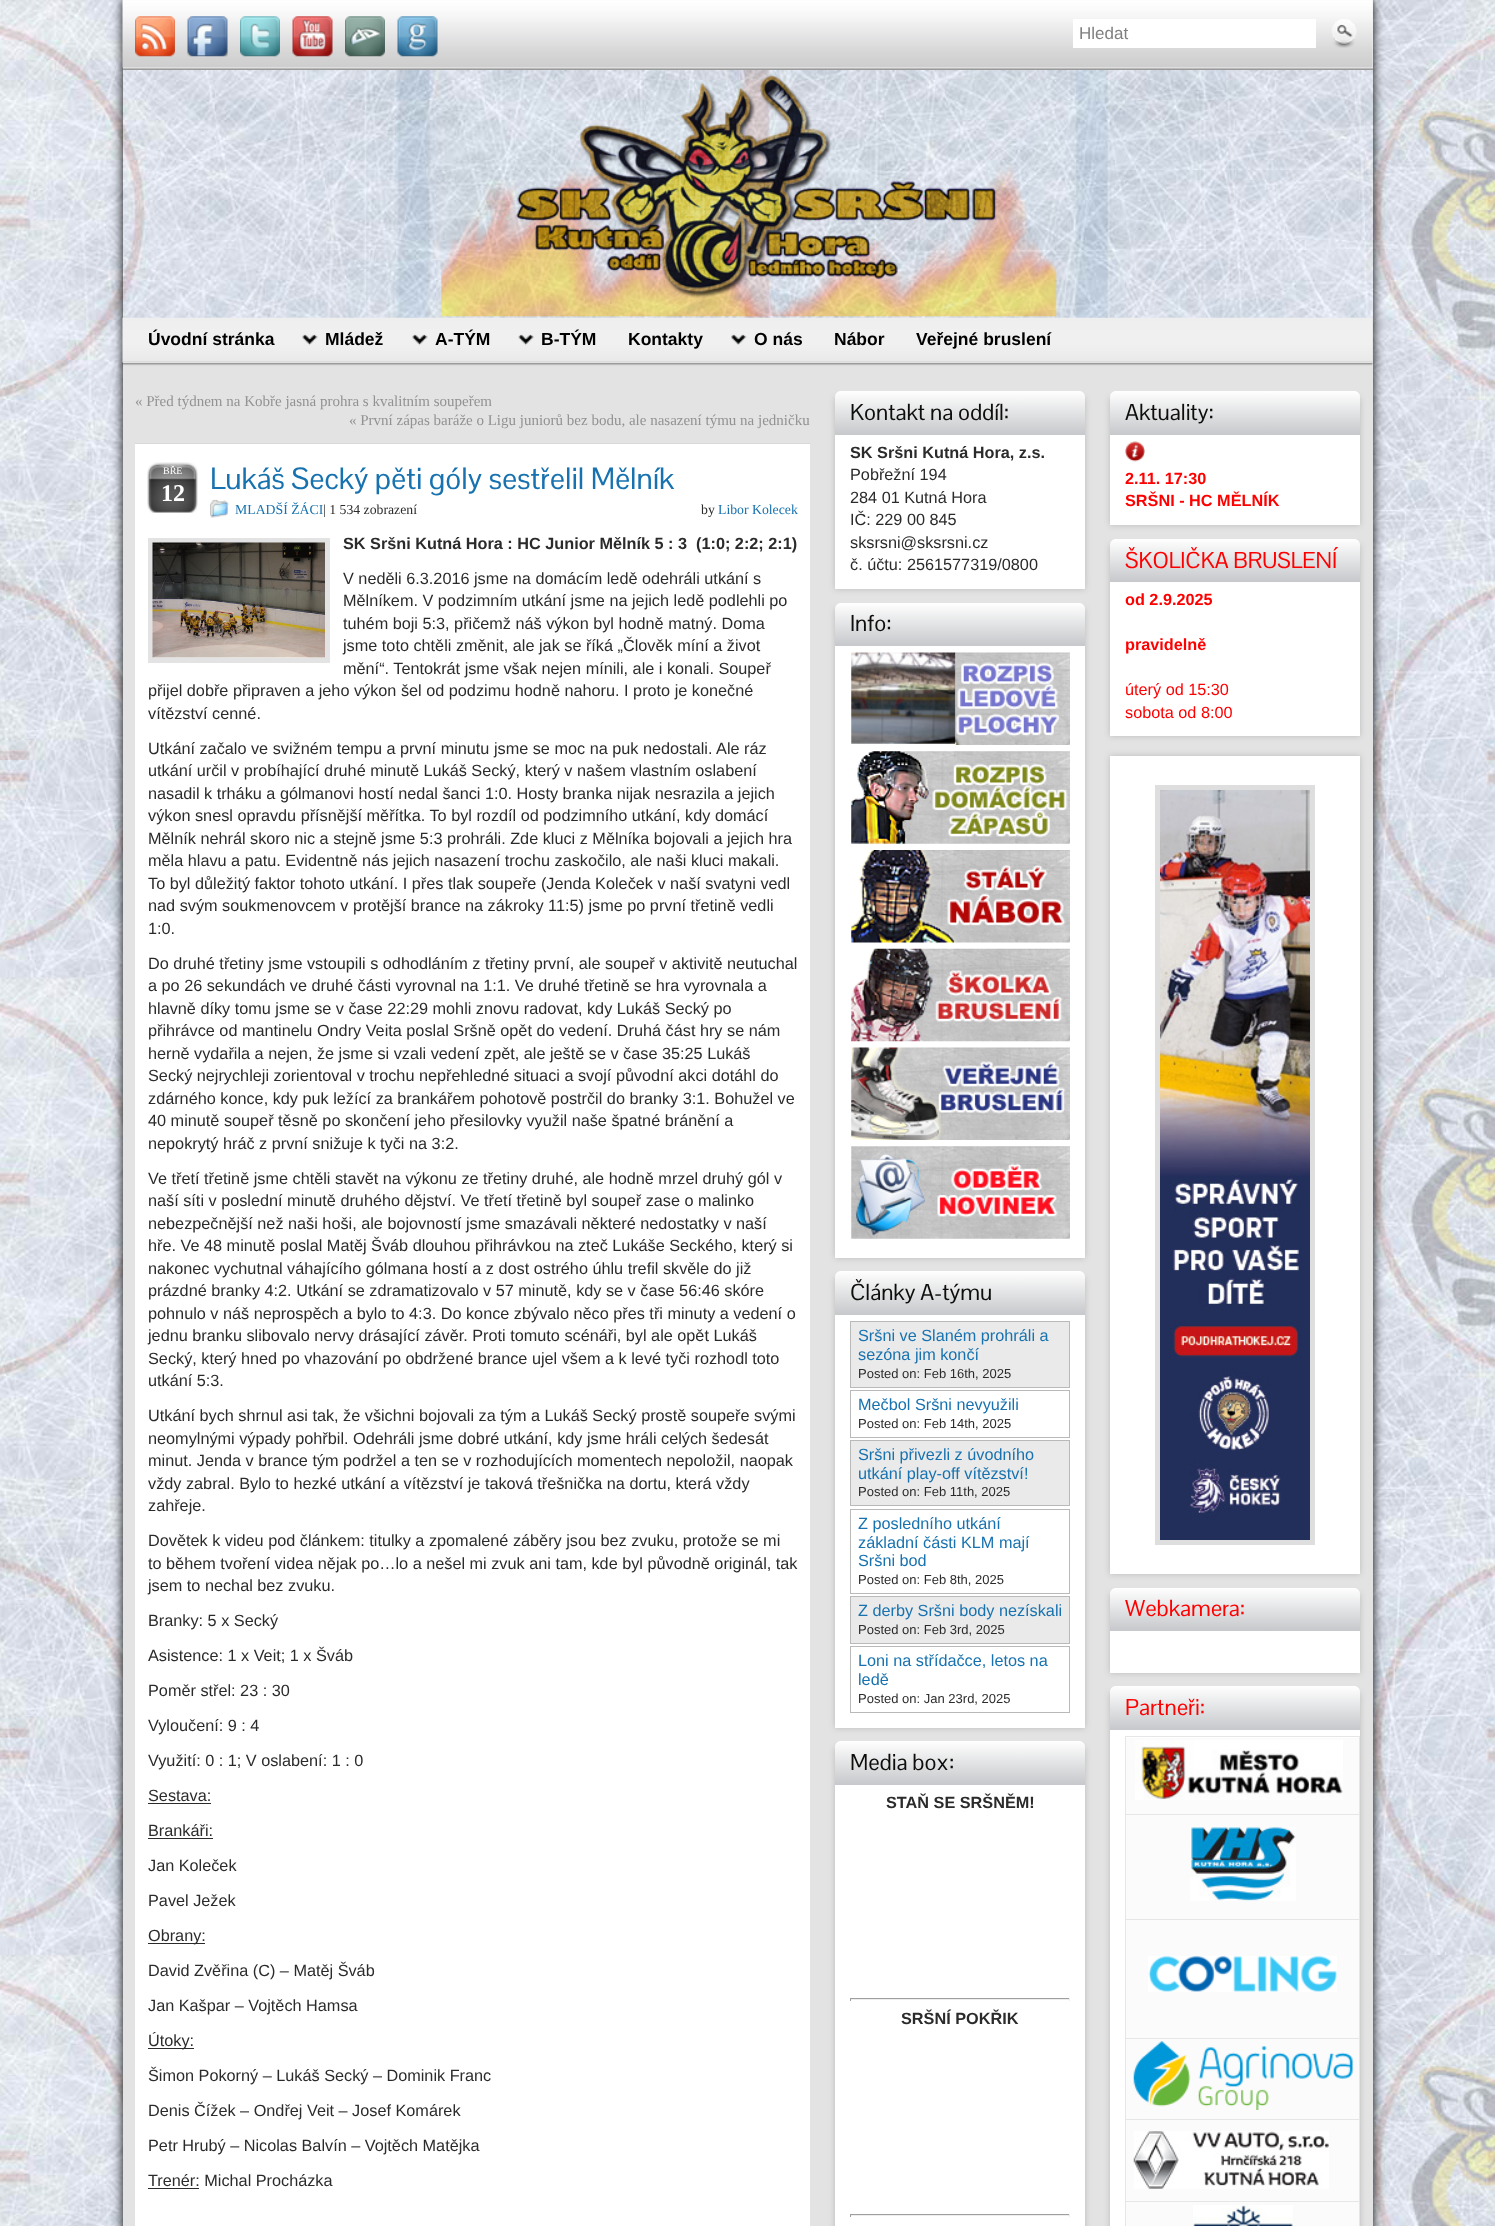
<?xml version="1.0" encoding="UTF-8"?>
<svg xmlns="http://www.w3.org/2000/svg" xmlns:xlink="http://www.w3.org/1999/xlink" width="1495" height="2226">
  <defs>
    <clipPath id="clip1"><path d="M 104 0 h 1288 v 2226 h -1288 z m 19 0 h 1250 v 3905 h -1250 z" clip-rule="evenodd" /></clipPath>
    <linearGradient id="g1" gradientUnits="userSpaceOnUse" x1="960" y1="391" x2="960" y2="434"><stop offset="0" stop-color="#ffffff" /><stop offset="1" stop-color="#c7c9cc" /></linearGradient>
    <linearGradient id="g2" gradientUnits="userSpaceOnUse" x1="960" y1="603" x2="960" y2="645"><stop offset="0" stop-color="#ffffff" /><stop offset="1" stop-color="#c7c9cc" /></linearGradient>
    <linearGradient id="g3" gradientUnits="userSpaceOnUse" x1="960" y1="1271" x2="960" y2="1314"><stop offset="0" stop-color="#ffffff" /><stop offset="1" stop-color="#c7c9cc" /></linearGradient>
    <linearGradient id="g4" gradientUnits="userSpaceOnUse" x1="960" y1="1741" x2="960" y2="1784"><stop offset="0" stop-color="#ffffff" /><stop offset="1" stop-color="#c7c9cc" /></linearGradient>
    <linearGradient id="g5" gradientUnits="userSpaceOnUse" x1="1235" y1="391" x2="1235" y2="434"><stop offset="0" stop-color="#ffffff" /><stop offset="1" stop-color="#c7c9cc" /></linearGradient>
    <linearGradient id="g6" gradientUnits="userSpaceOnUse" x1="1235" y1="539" x2="1235" y2="581"><stop offset="0" stop-color="#ffffff" /><stop offset="1" stop-color="#c7c9cc" /></linearGradient>
    <linearGradient id="g7" gradientUnits="userSpaceOnUse" x1="1235" y1="581" x2="1235" y2="624"><stop offset="0" stop-color="#ffffff" /><stop offset="1" stop-color="#c7c9cc" /></linearGradient>
    <linearGradient id="g8" gradientUnits="userSpaceOnUse" x1="1235" y1="1588" x2="1235" y2="1630"><stop offset="0" stop-color="#ffffff" /><stop offset="1" stop-color="#c7c9cc" /></linearGradient>
    <linearGradient id="g9" gradientUnits="userSpaceOnUse" x1="1235" y1="1686" x2="1235" y2="1729"><stop offset="0" stop-color="#ffffff" /><stop offset="1" stop-color="#c7c9cc" /></linearGradient>
  </defs>
  <rect width="100%" height="100%" fill="#ffffff" />
  <image x="0" y="0" width="1495" height="2226" xlink:href="image1.png" />
  <g clip-path="url(#clip1)">
    <rect x="123" width="1250" height="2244" fill="#000000" filter="blur(6px)" />
  </g>
  <rect x="123" width="1250" height="68" fill="#eeeeee" />
  <image x="122" y="0" width="1251" height="68" xlink:href="image2.png" />
  <rect x="123" y="68" width="1250" height="1" fill="#bbbbbb" />
  <image x="135" y="16" width="40" height="41" xlink:href="image3.png" />
  <image x="187" y="16" width="41" height="41" xlink:href="image4.png" />
  <image x="240" y="16" width="40" height="41" xlink:href="image5.png" />
  <image x="292" y="16" width="41" height="41" xlink:href="image6.png" />
  <image x="345" y="16" width="40" height="41" xlink:href="image7.png" />
  <image x="397" y="16" width="41" height="41" xlink:href="image8.png" />
  <rect x="1073" y="19" width="243" height="29" fill="#ffffff" />
  <image x="1331" y="19" width="26" height="29" xlink:href="image9.png" />
  <rect x="123" y="69" width="1250" height="1" fill="#999999" />
  <image x="441" y="75" width="616" height="242" xlink:href="image10.png" />
  <rect x="123" y="363" width="1250" height="3" fill="#eeeeee" />
  <image x="122" y="362" width="1251" height="4" xlink:href="image15.png" />
  <rect x="123" y="318" width="1250" height="45" fill="#dddddd" />
  <image x="122" y="317" width="1251" height="46" xlink:href="image11.png" />
  <rect x="123" y="361" width="1250" height="1" fill="#dddddd" />
  <image x="302" y="334" width="16" height="12" xlink:href="image12.png" />
  <image x="412" y="334" width="16" height="12" xlink:href="image12.png" />
  <image x="518" y="334" width="16" height="12" xlink:href="image13.png" />
  <image x="731" y="334" width="16" height="11" xlink:href="image14.png" />
  <rect x="123" y="366" width="1250" height="1860" fill="#e3e3e3" />
  <rect x="135" y="444" width="675" height="1782" fill="#ffffff" />
  <rect x="135" y="443" width="675" height="1" fill="#d8d8d8" />
  <image x="147" y="462" width="51" height="51" xlink:href="image16.png" />
  <image x="210" y="499" width="19" height="19" xlink:href="image17.png" />
  <rect x="150.5" y="540.5" width="177" height="120" fill="none" stroke="#e3e3e3" stroke-width="5" />
  <image x="152" y="542" width="173" height="116" xlink:href="image18.png" />
  <rect x="148" y="1803" width="63" height="1" fill="#2c2b2b" />
  <rect x="148" y="1838" width="65" height="1" fill="#2c2b2b" />
  <rect x="148" y="1943" width="57" height="1" fill="#2c2b2b" />
  <rect x="148" y="2048" width="46" height="1" fill="#2c2b2b" />
  <rect x="148" y="2188" width="51" height="1" fill="#2c2b2b" />
  <rect x="835" y="398" width="250" height="191" fill="#bbbbbb" filter="blur(3px)" />
  <rect x="835" y="435" width="250" height="154" fill="#ffffff" />
  <path d="M 841 391 h 238 c 3.5 0 6 2.5 6 6 v 37 h -250 v -37 c 0 -3.5 2.5 -6 6 -6 z" fill="url(#g1)" />
  <rect x="835" y="434" width="250" height="1" fill="#c7c9cc" />
  <rect x="835" y="609" width="250" height="649" fill="#bbbbbb" filter="blur(3px)" />
  <rect x="835" y="646" width="250" height="612" fill="#ffffff" />
  <path d="M 841 603 h 238 c 3.5 0 6 2.5 6 6 v 36 h -250 v -36 c 0 -3.5 2.5 -6 6 -6 z" fill="url(#g2)" />
  <rect x="835" y="645" width="250" height="1" fill="#c7c9cc" />
  <image x="851" y="652" width="219" height="93" xlink:href="image19.png" />
  <image x="851" y="751" width="219" height="93" xlink:href="image20.png" />
  <image x="851" y="850" width="219" height="93" xlink:href="image21.png" />
  <image x="851" y="948" width="219" height="94" xlink:href="image22.png" />
  <image x="851" y="1047" width="219" height="93" xlink:href="image23.png" />
  <image x="851" y="1146" width="219" height="93" xlink:href="image24.png" />
  <rect x="835" y="1278" width="250" height="450" fill="#bbbbbb" filter="blur(3px)" />
  <rect x="835" y="1315" width="250" height="413" fill="#ffffff" />
  <path d="M 841 1271 h 238 c 3.5 0 6 2.5 6 6 v 37 h -250 v -37 c 0 -3.5 2.5 -6 6 -6 z" fill="url(#g3)" />
  <rect x="835" y="1314" width="250" height="1" fill="#c7c9cc" />
  <rect x="850.5" y="1321.5" width="219" height="66" fill="#eaeaea" stroke="#b9b9b9" />
  <rect x="850.5" y="1390.5" width="219" height="47" fill="none" stroke="#b9b9b9" />
  <rect x="850.5" y="1440.5" width="219" height="65" fill="#eaeaea" stroke="#b9b9b9" />
  <rect x="850.5" y="1509.5" width="219" height="84" fill="none" stroke="#b9b9b9" />
  <rect x="850.5" y="1596.5" width="219" height="47" fill="#eaeaea" stroke="#b9b9b9" />
  <rect x="850.5" y="1646.5" width="219" height="66" fill="none" stroke="#b9b9b9" />
  <rect x="835" y="1748" width="250" height="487" fill="#bbbbbb" filter="blur(3px)" />
  <rect x="835" y="1785" width="250" height="441" fill="#ffffff" />
  <path d="M 841 1741 h 238 c 3.5 0 6 2.5 6 6 v 37 h -250 v -37 c 0 -3.5 2.5 -6 6 -6 z" fill="url(#g4)" />
  <rect x="835" y="1784" width="250" height="1" fill="#c7c9cc" />
  <rect x="850" y="1998" width="220" height="1" fill="#9f9f9f" />
  <rect x="1069" y="1998" width="1" height="3" fill="#eeeeee" />
  <rect x="850" y="1999" width="220" height="1" fill="#eeeeee" />
  <rect x="850" y="1998" width="1" height="3" fill="#9f9f9f" />
  <rect x="850" y="2214" width="220" height="1" fill="#9f9f9f" />
  <rect x="1069" y="2214" width="1" height="3" fill="#eeeeee" />
  <rect x="850" y="2215" width="220" height="1" fill="#eeeeee" />
  <rect x="850" y="2214" width="1" height="3" fill="#9f9f9f" />
  <rect x="1110" y="398" width="250" height="127" fill="#bbbbbb" filter="blur(3px)" />
  <rect x="1110" y="435" width="250" height="90" fill="#ffffff" />
  <path d="M 1116 391 h 238 c 3.5 0 6 2.5 6 6 v 37 h -250 v -37 c 0 -3.5 2.5 -6 6 -6 z" fill="url(#g5)" />
  <rect x="1110" y="434" width="250" height="1" fill="#c7c9cc" />
  <image x="1125" y="441" width="20" height="21" xlink:href="image25.png" />
  <rect x="1110" y="545" width="250" height="191" fill="#bbbbbb" filter="blur(3px)" />
  <rect x="1110" y="583" width="250" height="153" fill="#ffffff" />
  <path d="M 1116 539 h 238 c 3.5 0 6 2.5 6 6 v 36 h -250 v -36 c 0 -3.5 2.5 -6 6 -6 z" fill="url(#g6)" />
  <rect x="1110" y="582" width="250" height="1" fill="url(#g7)" />
  <rect x="1110" y="581" width="250" height="1" fill="#c7c9cc" />
  <rect x="1110" y="756" width="250" height="818" fill="#bbbbbb" filter="blur(3px)" />
  <rect x="1110" y="756" width="250" height="818" fill="#ffffff" />
  <rect x="1157.5" y="787.5" width="155" height="755" fill="none" stroke="#dedede" stroke-width="5" />
  <image x="1160" y="790" width="150" height="750" xlink:href="image26.png" />
  <rect x="1110" y="1594" width="250" height="79" fill="#bbbbbb" filter="blur(3px)" />
  <rect x="1110" y="1631" width="250" height="42" fill="#ffffff" />
  <path d="M 1116 1588 h 238 c 3.5 0 6 2.5 6 6 v 36 h -250 v -36 c 0 -3.5 2.5 -6 6 -6 z" fill="url(#g8)" />
  <rect x="1110" y="1630" width="250" height="1" fill="#c7c9cc" />
  <rect x="1110" y="1693" width="250" height="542" fill="#bbbbbb" filter="blur(3px)" />
  <rect x="1110" y="1730" width="250" height="496" fill="#ffffff" />
  <path d="M 1116 1686 h 238 c 3.5 0 6 2.5 6 6 v 37 h -250 v -37 c 0 -3.5 2.5 -6 6 -6 z" fill="url(#g9)" />
  <rect x="1110" y="1729" width="250" height="1" fill="#c7c9cc" />
  <rect x="1126" y="1738" width="233" height="76" fill="#fbfbfb" />
  <rect x="1125" y="1736" width="235" height="1" fill="#e6e6e6" />
  <rect x="1125" y="1814" width="235" height="1" fill="#e6e6e6" />
  <rect x="1125" y="1919" width="235" height="1" fill="#e6e6e6" />
  <rect x="1125" y="2038" width="235" height="1" fill="#e6e6e6" />
  <rect x="1125" y="2119" width="235" height="1" fill="#e6e6e6" />
  <rect x="1126" y="2120" width="233" height="106" fill="#fbfbfb" />
  <rect x="1125" y="2201" width="235" height="1" fill="#e6e6e6" />
  <rect x="1359" y="2201" width="1" height="25" fill="#e6e6e6" />
  <rect x="1359" y="2119" width="1" height="84" fill="#e6e6e6" />
  <rect x="1359" y="2038" width="1" height="82" fill="#e6e6e6" />
  <rect x="1359" y="1919" width="1" height="120" fill="#e6e6e6" />
  <rect x="1359" y="1814" width="1" height="106" fill="#e6e6e6" />
  <rect x="1359" y="1736" width="1" height="79" fill="#e6e6e6" />
  <rect x="1125" y="2201" width="1" height="25" fill="#e6e6e6" />
  <rect x="1125" y="2119" width="1" height="84" fill="#e6e6e6" />
  <rect x="1125" y="2038" width="1" height="82" fill="#e6e6e6" />
  <rect x="1125" y="1919" width="1" height="120" fill="#e6e6e6" />
  <rect x="1125" y="1814" width="1" height="106" fill="#e6e6e6" />
  <rect x="1125" y="1736" width="1" height="79" fill="#e6e6e6" />
  <image x="1135" y="1740" width="208" height="60" xlink:href="image27.png" />
  <rect x="1126" y="1815" width="233" height="104" fill="#fbfbfb" />
  <image x="1190" y="1827" width="106" height="74" xlink:href="image28.png" />
  <rect x="1126" y="1920" width="233" height="118" fill="#fbfbfb" />
  <image x="1148" y="1956" width="189" height="36" xlink:href="image29.png" />
  <rect x="1126" y="2039" width="233" height="80" fill="#fbfbfb" />
  <image x="1133" y="2041" width="220" height="69" xlink:href="image30.png" />
  <image x="1133" y="2131" width="196" height="58" xlink:href="image31.png" />
  <image x="1193" y="2205" width="100" height="21" xlink:href="image32.png" />
  <text x="1079" y="39" style="font-family: Liberation Sans; font-size: 17px; fill: #808080">Hledat</text>
  <text x="148" y="345" style="font-family: Liberation Sans; font-size: 17.5px; font-weight: bold; fill: #000000">Úvodní stránka</text>
  <text x="325" y="345" style="font-family: Liberation Sans; font-size: 17.5px; font-weight: bold; fill: #000000">Mládež</text>
  <text x="435" y="345" style="font-family: Liberation Sans; font-size: 17.5px; font-weight: bold; fill: #000000">A-TÝM</text>
  <text x="541" y="345" style="font-family: Liberation Sans; font-size: 17.5px; font-weight: bold; fill: #000000">B-TÝM</text>
  <text x="628" y="345" style="font-family: Liberation Sans; font-size: 17.5px; font-weight: bold; fill: #000000">Kontakty</text>
  <text x="754" y="345" style="font-family: Liberation Sans; font-size: 17.5px; font-weight: bold; fill: #000000">O nás</text>
  <text x="834" y="345" style="font-family: Liberation Sans; font-size: 17.5px; font-weight: bold; fill: #000000">Nábor</text>
  <text x="916" y="345" style="font-family: Liberation Sans; font-size: 17.5px; font-weight: bold; fill: #000000">Veřejné bruslení</text>
  <text x="135" y="406" style="font-family: Liberation Serif; font-size: 15px; fill: #929292">« Před týdnem na Kobře jasná prohra s kvalitním soupeřem</text>
  <text x="349" y="425" style="font-family: Liberation Serif; font-size: 15px; fill: #929292">« První zápas baráže o Ligu juniorů bez bodu, ale nasazení týmu na jedničku</text>
  <text x="163" y="474" style="font-family: Liberation Serif; font-size: 10px; fill: #ffffff">BŘE</text>
  <text x="161" y="501" style="font-family: Liberation Serif; font-size: 24px; font-weight: bold; fill: #ffffff">12</text>
  <text x="210" y="489" style="font-family: Pontano Sans; font-size: 30px; fill: #1772af">Lukáš Secký pěti góly sestřelil Mělník</text>
  <text x="235" y="514" style="font-family: Liberation Serif; font-size: 13.75px; fill: #1772af">MLADŠÍ ŽÁCI</text>
  <text x="323" y="514" style="font-family: Liberation Serif; font-size: 13.75px; fill: #2c2b2b">| 1 534 zobrazení</text>
  <text x="701" y="514" style="font-family: Liberation Serif; font-size: 13.75px; fill: #2c2b2b">by</text>
  <text x="718" y="514" style="font-family: Liberation Serif; font-size: 13.75px; fill: #1772af">Libor Kolecek</text>
  <text x="343" y="549" style="font-family: Liberation Sans; font-size: 16.25px; font-weight: bold; fill: #2c2b2b" xml:space="preserve">SK Sršni Kutná Hora : HC Junior Mělník 5 : 3  (1:0; 2:2; 2:1)</text>
  <text x="343" y="584" style="font-family: Liberation Sans; font-size: 16.25px; fill: #2c2b2b">V neděli 6.3.2016 jsme na domácím ledě odehráli utkání s</text>
  <text x="343" y="606" style="font-family: Liberation Sans; font-size: 16.25px; fill: #2c2b2b">Mělníkem. V podzimním utkání jsme na jejich ledě podlehli po</text>
  <text x="343" y="629" style="font-family: Liberation Sans; font-size: 16.25px; fill: #2c2b2b">tuhém boji 5:3, přičemž náš výkon byl hodně matný. Doma</text>
  <text x="343" y="651" style="font-family: Liberation Sans; font-size: 16.25px; fill: #2c2b2b">jsme toto chtěli změnit, ale jak se říká „Člověk míní a život</text>
  <text x="343" y="674" style="font-family: Liberation Sans; font-size: 16.25px; fill: #2c2b2b">mění“. Tentokrát jsme však nejen mínili, ale i konali. Soupeř</text>
  <text x="148" y="696" style="font-family: Liberation Sans; font-size: 16.25px; fill: #2c2b2b">přijel dobře připraven a jeho výkon šel od podzimu hodně nahoru. I proto je konečné</text>
  <text x="148" y="719" style="font-family: Liberation Sans; font-size: 16.25px; fill: #2c2b2b">vítězství cenné.</text>
  <text x="148" y="754" style="font-family: Liberation Sans; font-size: 16.25px; fill: #2c2b2b">Utkání začalo ve svižném tempu a první minutu jsme se moc na puk nedostali. Ale ráz</text>
  <text x="148" y="776" style="font-family: Liberation Sans; font-size: 16.25px; fill: #2c2b2b">utkání určil v probíhající druhé minutě Lukáš Secký, který v našem vlastním oslabení</text>
  <text x="148" y="799" style="font-family: Liberation Sans; font-size: 16.25px; fill: #2c2b2b">nasadil k trháku a gólmanovi hostí nedal šanci 1:0. Hosty branka nijak nesrazila a jejich</text>
  <text x="148" y="821" style="font-family: Liberation Sans; font-size: 16.25px; fill: #2c2b2b">výkon snesl opravdu přísnější měřítka. To byl rozdíl od podzimního utkání, kdy domácí</text>
  <text x="148" y="844" style="font-family: Liberation Sans; font-size: 16.25px; fill: #2c2b2b">Mělník nehrál skoro nic a stejně jsme 5:3 prohráli. Zde kluci z Mělníka bojovali a jejich hra</text>
  <text x="148" y="866" style="font-family: Liberation Sans; font-size: 16.25px; fill: #2c2b2b">měla hlavu a patu. Evidentně nás jejich nasazení trochu zaskočilo, ale naši kluci makali.</text>
  <text x="148" y="889" style="font-family: Liberation Sans; font-size: 16.25px; fill: #2c2b2b">To byl důležitý faktor tohoto utkání. I přes tlak soupeře (Jenda Koleček v naší svatyni vedl</text>
  <text x="148" y="911" style="font-family: Liberation Sans; font-size: 16.25px; fill: #2c2b2b">nad svým soukmenovcem v protější brance na zákroky 11:5) jsme po první třetině vedli</text>
  <text x="148" y="934" style="font-family: Liberation Sans; font-size: 16.25px; fill: #2c2b2b">1:0.</text>
  <text x="148" y="969" style="font-family: Liberation Sans; font-size: 16.25px; fill: #2c2b2b">Do druhé třetiny jsme vstoupili s odhodláním z třetiny první, ale soupeř v aktivitě neutuchal</text>
  <text x="148" y="991" style="font-family: Liberation Sans; font-size: 16.25px; fill: #2c2b2b">a po 26 sekundách ve druhé části vyrovnal na 1:1. Ve druhé třetině se hra vyrovnala a</text>
  <text x="148" y="1014" style="font-family: Liberation Sans; font-size: 16.25px; fill: #2c2b2b">hlavně díky tomu jsme se v čase 22:29 mohli znovu radovat, kdy Lukáš Secký po</text>
  <text x="148" y="1036" style="font-family: Liberation Sans; font-size: 16.25px; fill: #2c2b2b">přihrávce od mantinelu Ondry Veita poslal Sršně opět do vedení. Druhá část hry se nám</text>
  <text x="148" y="1059" style="font-family: Liberation Sans; font-size: 16.25px; fill: #2c2b2b">herně vydařila a nejen, že jsme si vzali vedení zpět, ale ještě se v čase 35:25 Lukáš</text>
  <text x="148" y="1081" style="font-family: Liberation Sans; font-size: 16.25px; fill: #2c2b2b">Secký nejrychleji zorientoval v trochu nepřehledné situaci a svojí původní akci dotáhl do</text>
  <text x="148" y="1104" style="font-family: Liberation Sans; font-size: 16.25px; fill: #2c2b2b">zdárného konce, kdy puk ležící za brankářem pohotově postrčil do branky 3:1. Bohužel ve</text>
  <text x="148" y="1126" style="font-family: Liberation Sans; font-size: 16.25px; fill: #2c2b2b">40 minutě soupeř těsně po skončení jeho přesilovky využil naše špatné bránění a</text>
  <text x="148" y="1149" style="font-family: Liberation Sans; font-size: 16.25px; fill: #2c2b2b">nepokrytý hráč z první snižuje k tyči na 3:2.</text>
  <text x="148" y="1184" style="font-family: Liberation Sans; font-size: 16.25px; fill: #2c2b2b">Ve třetí třetině jsme chtěli stavět na výkonu ze třetiny druhé, ale hodně mrzel druhý gól v</text>
  <text x="148" y="1206" style="font-family: Liberation Sans; font-size: 16.25px; fill: #2c2b2b">naší síti v poslední minutě druhého dějství. Ve třetí třetině byl soupeř zase o malinko</text>
  <text x="148" y="1229" style="font-family: Liberation Sans; font-size: 16.25px; fill: #2c2b2b">nebezpečnější než naši hoši, ale bojovností jsme smazávali některé nedostatky v naší</text>
  <text x="148" y="1251" style="font-family: Liberation Sans; font-size: 16.25px; fill: #2c2b2b">hře. Ve 48 minutě poslal Matěj Šváb dlouhou přihrávkou na zteč Lukáše Seckého, který si</text>
  <text x="148" y="1274" style="font-family: Liberation Sans; font-size: 16.25px; fill: #2c2b2b">nakonec vychutnal váhajícího gólmana hostí a z dost ostrého úhlu trefil skvěle do již</text>
  <text x="148" y="1296" style="font-family: Liberation Sans; font-size: 16.25px; fill: #2c2b2b">prázdné branky 4:2. Utkání se zdramatizovalo v 57 minutě, kdy se v čase 56:46 skóre</text>
  <text x="148" y="1319" style="font-family: Liberation Sans; font-size: 16.25px; fill: #2c2b2b">pohnulo v náš neprospěch a bylo to 4:3. Do konce zbývalo něco přes tři minuty a vedení o</text>
  <text x="148" y="1341" style="font-family: Liberation Sans; font-size: 16.25px; fill: #2c2b2b">jednu branku slibovalo nervy drásající závěr. Proti tomuto scénáři, byl ale opět Lukáš</text>
  <text x="148" y="1364" style="font-family: Liberation Sans; font-size: 16.25px; fill: #2c2b2b">Secký, který hned po vhazování po obdržené brance ujel všem a k levé tyči rozhodl toto</text>
  <text x="148" y="1386" style="font-family: Liberation Sans; font-size: 16.25px; fill: #2c2b2b">utkání 5:3.</text>
  <text x="148" y="1421" style="font-family: Liberation Sans; font-size: 16.25px; fill: #2c2b2b">Utkání bych shrnul asi tak, že všichni bojovali za tým a Lukáš Secký prostě soupeře svými</text>
  <text x="148" y="1444" style="font-family: Liberation Sans; font-size: 16.25px; fill: #2c2b2b">neomylnými výpady pohřbil. Odehráli jsme dobré utkání, kdy jsme hráli celých šedesát</text>
  <text x="148" y="1466" style="font-family: Liberation Sans; font-size: 16.25px; fill: #2c2b2b">minut. Jenda v brance tým podržel a ten se v rozhodujících momentech nepoložil, naopak</text>
  <text x="148" y="1489" style="font-family: Liberation Sans; font-size: 16.25px; fill: #2c2b2b">vždy zabral. Bylo to hezké utkání a vítězství je taková třešnička na dortu, která vždy</text>
  <text x="148" y="1511" style="font-family: Liberation Sans; font-size: 16.25px; fill: #2c2b2b">zahřeje.</text>
  <text x="148" y="1546" style="font-family: Liberation Sans; font-size: 16.25px; fill: #2c2b2b">Dovětek k videu pod článkem: titulky a zpomalené záběry jsou bez zvuku, protože se mi</text>
  <text x="148" y="1569" style="font-family: Liberation Sans; font-size: 16.25px; fill: #2c2b2b">to během tvoření videa nějak po…lo a nešel mi zvuk ani tam, kde byl původně originál, tak</text>
  <text x="148" y="1591" style="font-family: Liberation Sans; font-size: 16.25px; fill: #2c2b2b">jsem to nechal bez zvuku.</text>
  <text x="148" y="1626" style="font-family: Liberation Sans; font-size: 16.25px; fill: #2c2b2b">Branky: 5 x Secký</text>
  <text x="148" y="1661" style="font-family: Liberation Sans; font-size: 16.25px; fill: #2c2b2b">Asistence: 1 x Veit; 1 x Šváb</text>
  <text x="148" y="1696" style="font-family: Liberation Sans; font-size: 16.25px; fill: #2c2b2b">Poměr střel: 23 : 30</text>
  <text x="148" y="1731" style="font-family: Liberation Sans; font-size: 16.25px; fill: #2c2b2b">Vyloučení: 9 : 4</text>
  <text x="148" y="1766" style="font-family: Liberation Sans; font-size: 16.25px; fill: #2c2b2b">Využití: 0 : 1; V oslabení: 1 : 0</text>
  <text x="148" y="1801" style="font-family: Liberation Sans; font-size: 16.25px; fill: #2c2b2b">Sestava:</text>
  <text x="148" y="1836" style="font-family: Liberation Sans; font-size: 16.25px; fill: #2c2b2b">Brankáři:</text>
  <text x="148" y="1871" style="font-family: Liberation Sans; font-size: 16.25px; fill: #2c2b2b">Jan Koleček</text>
  <text x="148" y="1906" style="font-family: Liberation Sans; font-size: 16.25px; fill: #2c2b2b">Pavel Ježek</text>
  <text x="148" y="1941" style="font-family: Liberation Sans; font-size: 16.25px; fill: #2c2b2b">Obrany:</text>
  <text x="148" y="1976" style="font-family: Liberation Sans; font-size: 16.25px; fill: #2c2b2b">David Zvěřina (C) – Matěj Šváb</text>
  <text x="148" y="2011" style="font-family: Liberation Sans; font-size: 16.25px; fill: #2c2b2b">Jan Kašpar – Vojtěch Hamsa</text>
  <text x="148" y="2046" style="font-family: Liberation Sans; font-size: 16.25px; fill: #2c2b2b">Útoky:</text>
  <text x="148" y="2081" style="font-family: Liberation Sans; font-size: 16.25px; fill: #2c2b2b">Šimon Pokorný – Lukáš Secký – Dominik Franc</text>
  <text x="148" y="2116" style="font-family: Liberation Sans; font-size: 16.25px; fill: #2c2b2b">Denis Čížek – Ondřej Veit – Josef Komárek</text>
  <text x="148" y="2151" style="font-family: Liberation Sans; font-size: 16.25px; fill: #2c2b2b">Petr Hrubý – Nicolas Balvín – Vojtěch Matějka</text>
  <text x="148" y="2186" style="font-family: Liberation Sans; font-size: 16.25px; fill: #2c2b2b">Trenér: Michal Procházka</text>
  <text x="850" y="420" style="font-family: Pontano Sans; font-size: 22.5px; fill: #0d0d0c">Kontakt na oddíl:</text>
  <text x="850" y="458" style="font-family: Liberation Sans; font-size: 16.25px; font-weight: bold; fill: #2c2b2b">SK Sršni Kutná Hora, z.s.</text>
  <text x="850" y="480" style="font-family: Liberation Sans; font-size: 16.25px; fill: #2c2b2b">Pobřežní 194</text>
  <text x="850" y="503" style="font-family: Liberation Sans; font-size: 16.25px; fill: #2c2b2b">284 01 Kutná Hora</text>
  <text x="850" y="525" style="font-family: Liberation Sans; font-size: 16.25px; fill: #2c2b2b">IČ: 229 00 845</text>
  <text x="850" y="548" style="font-family: Liberation Sans; font-size: 16.25px; fill: #2c2b2b">sksrsni@sksrsni.cz</text>
  <text x="850" y="570" style="font-family: Liberation Sans; font-size: 16.25px; fill: #2c2b2b">č. účtu: 2561577319/0800</text>
  <text x="850" y="631" style="font-family: Pontano Sans; font-size: 22.5px; fill: #0d0d0c">Info:</text>
  <text x="850" y="1300" style="font-family: Pontano Sans; font-size: 22.5px; fill: #0d0d0c">Články A-týmu</text>
  <text x="858" y="1341" style="font-family: Liberation Sans; font-size: 16.25px; fill: #1772af">Sršni ve Slaném prohráli a</text>
  <text x="858" y="1360" style="font-family: Liberation Sans; font-size: 16.25px; fill: #1772af">sezóna jim končí</text>
  <text x="858" y="1378" style="font-family: Liberation Sans; font-size: 13px; fill: #2c2b2b">Posted on: Feb 16th, 2025</text>
  <text x="858" y="1410" style="font-family: Liberation Sans; font-size: 16.25px; fill: #1772af">Mečbol Sršni nevyužili</text>
  <text x="858" y="1428" style="font-family: Liberation Sans; font-size: 13px; fill: #2c2b2b">Posted on: Feb 14th, 2025</text>
  <text x="858" y="1460" style="font-family: Liberation Sans; font-size: 16.25px; fill: #1772af">Sršni přivezli z úvodního</text>
  <text x="858" y="1479" style="font-family: Liberation Sans; font-size: 16.25px; fill: #1772af">utkání play-off vítězství!</text>
  <text x="858" y="1496" style="font-family: Liberation Sans; font-size: 13px; fill: #2c2b2b">Posted on: Feb 11th, 2025</text>
  <text x="858" y="1529" style="font-family: Liberation Sans; font-size: 16.25px; fill: #1772af">Z posledního utkání</text>
  <text x="858" y="1548" style="font-family: Liberation Sans; font-size: 16.25px; fill: #1772af">základní části KLM mají</text>
  <text x="858" y="1566" style="font-family: Liberation Sans; font-size: 16.25px; fill: #1772af">Sršni bod</text>
  <text x="858" y="1584" style="font-family: Liberation Sans; font-size: 13px; fill: #2c2b2b">Posted on: Feb 8th, 2025</text>
  <text x="858" y="1616" style="font-family: Liberation Sans; font-size: 16.25px; fill: #1772af">Z derby Sršni body nezískali</text>
  <text x="858" y="1634" style="font-family: Liberation Sans; font-size: 13px; fill: #2c2b2b">Posted on: Feb 3rd, 2025</text>
  <text x="858" y="1666" style="font-family: Liberation Sans; font-size: 16.25px; fill: #1772af">Loni na střídačce, letos na</text>
  <text x="858" y="1685" style="font-family: Liberation Sans; font-size: 16.25px; fill: #1772af">ledě</text>
  <text x="858" y="1703" style="font-family: Liberation Sans; font-size: 13px; fill: #2c2b2b">Posted on: Jan 23rd, 2025</text>
  <text x="850" y="1770" style="font-family: Pontano Sans; font-size: 22.5px; fill: #0d0d0c">Media box:</text>
  <text x="886" y="1808" style="font-family: Liberation Sans; font-size: 16.25px; font-weight: bold; fill: #2c2b2b">STAŇ SE SRŠNĚM!</text>
  <text x="901" y="2024" style="font-family: Liberation Sans; font-size: 16.25px; font-weight: bold; fill: #2c2b2b">SRŠNÍ POKŘIK</text>
  <text x="1125" y="420" style="font-family: Pontano Sans; font-size: 22.5px; fill: #0d0d0c">Aktuality:</text>
  <text x="1125" y="484" style="font-family: Liberation Sans; font-size: 16.25px; font-weight: bold; fill: #ff0000">2.11. 17:30</text>
  <text x="1125" y="506" style="font-family: Liberation Sans; font-size: 16.25px; font-weight: bold; fill: #ff0000">SRŠNI - HC MĚLNÍK</text>
  <text x="1125" y="568" style="font-family: Pontano Sans; font-size: 22.5px; fill: #ff0000">ŠKOLIČKA BRUSLENÍ</text>
  <text x="1125" y="605" style="font-family: Liberation Sans; font-size: 16.25px; font-weight: bold; fill: #ff0000">od 2.9.2025</text>
  <text x="1125" y="650" style="font-family: Liberation Sans; font-size: 16.25px; font-weight: bold; fill: #ff0000">pravidelně</text>
  <text x="1125" y="695" style="font-family: Liberation Sans; font-size: 16.25px; fill: #ff0000">úterý od 15:30</text>
  <text x="1125" y="718" style="font-family: Liberation Sans; font-size: 16.25px; fill: #ff0000">sobota od 8:00</text>
  <text x="1125" y="1616" style="font-family: Pontano Sans; font-size: 22.5px; fill: #ff0000">Webkamera:</text>
  <text x="1125" y="1715" style="font-family: Pontano Sans; font-size: 22.5px; fill: #ff0000">Partneři:</text>
</svg>
